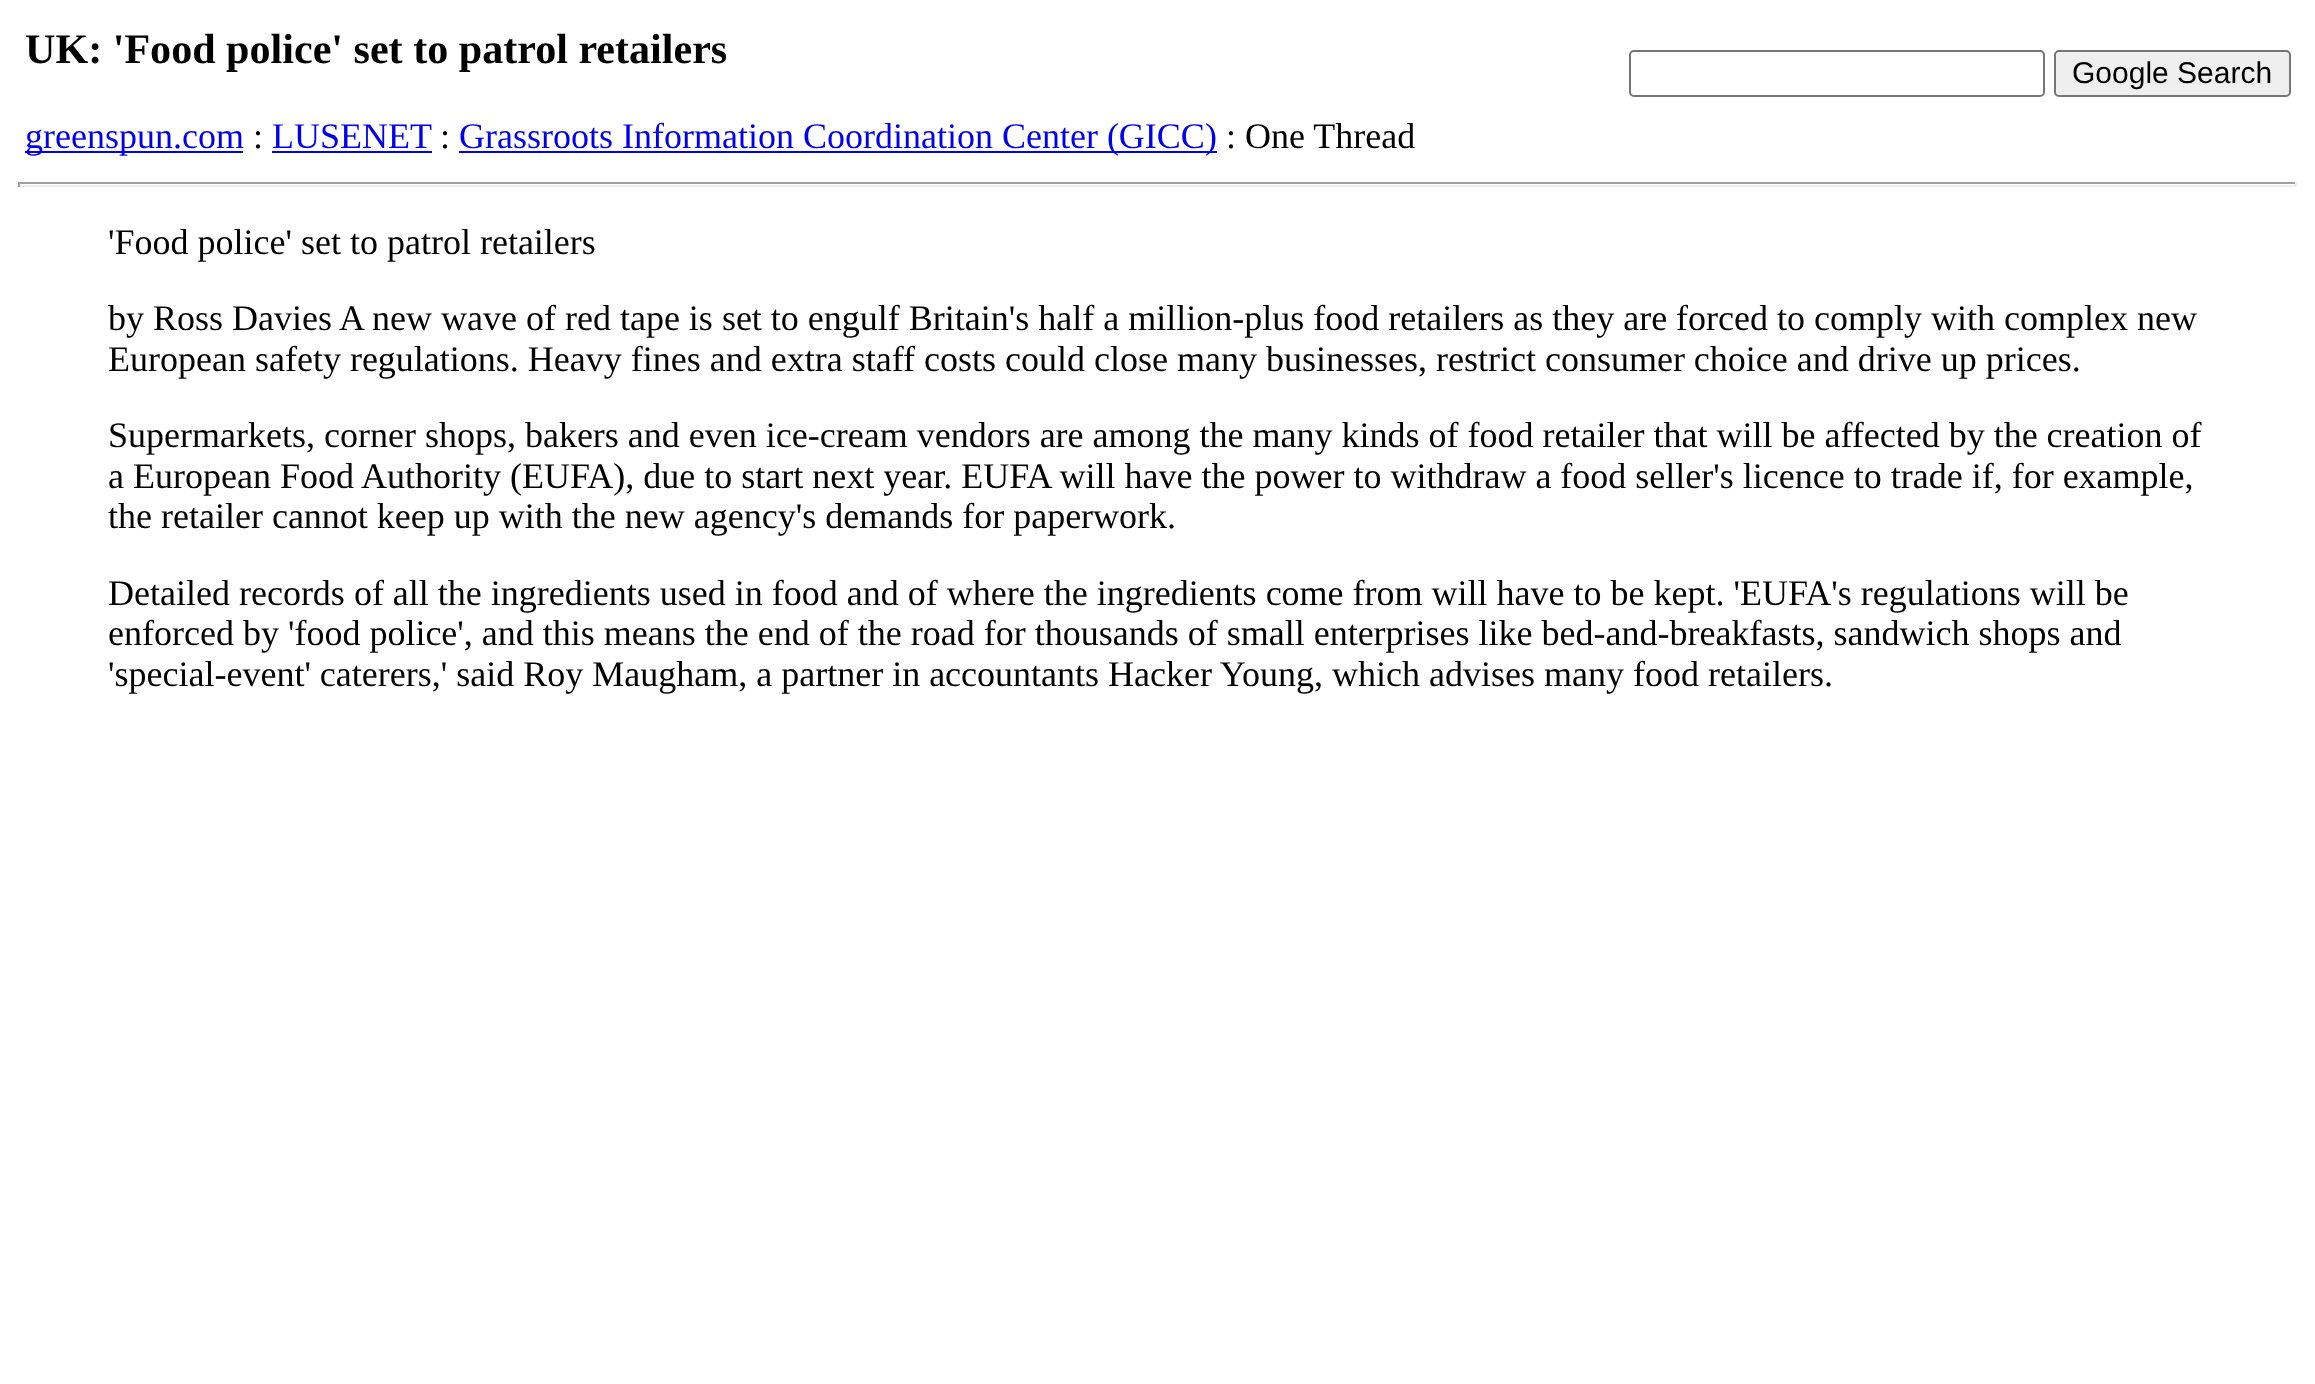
<?xml version="1.0" encoding="UTF-8"?>
<svg xmlns="http://www.w3.org/2000/svg" xmlns:xlink="http://www.w3.org/1999/xlink" width="2315" height="1384">
  <rect width="100%" height="100%" fill="#ffffff" />
  <rect x="25" y="151" width="218" height="2" fill="#0000ee" />
  <rect x="272" y="151" width="160" height="2" fill="#0000ee" />
  <rect x="459" y="151" width="758" height="2" fill="#0000ee" />
  <rect x="1630" y="51" width="414" height="45" rx="4" fill="none" stroke="#767676" stroke-width="2" />
  <rect x="2055" y="51" width="235" height="45" rx="4" fill="#efefef" stroke="#767676" stroke-width="2" />
  <rect x="18" y="182" width="2279" height="2" fill="#9f9f9f" />
  <rect x="2295" y="182" width="2" height="5" fill="#eeeeee" />
  <rect x="18" y="185" width="2279" height="2" fill="#eeeeee" />
  <rect x="18" y="182" width="2" height="5" fill="#9f9f9f" />
  <text x="25" y="63" style="font-family: Liberation Serif; font-size: 42.1px; font-weight: bold; fill: #000000">UK: 'Food police' set to patrol retailers</text>
  <text x="25" y="148" style="font-family: Liberation Serif; font-size: 36px; fill: #0000ee">greenspun.com</text>
  <text x="253" y="148" style="font-family: Liberation Serif; font-size: 36px; fill: #000000">:</text>
  <text x="272" y="148" style="font-family: Liberation Serif; font-size: 36px; fill: #0000ee">LUSENET</text>
  <text x="440" y="148" style="font-family: Liberation Serif; font-size: 36px; fill: #000000">:</text>
  <text x="459" y="148" style="font-family: Liberation Serif; font-size: 36px; fill: #0000ee">Grassroots Information Coordination Center (GICC)</text>
  <text x="1226" y="148" style="font-family: Liberation Serif; font-size: 36px; fill: #000000">: One Thread</text>
  <text x="2072" y="83" style="font-family: Liberation Sans; font-size: 30px; fill: #000000">Google Search</text>
  <text x="108" y="254" style="font-family: Liberation Serif; font-size: 36px; fill: #000000">'Food police' set to patrol retailers</text>
  <text x="108" y="330" style="font-family: Liberation Serif; font-size: 36px; fill: #000000">by Ross Davies A new wave of red tape is set to engulf Britain's half a million-plus food retailers as they are forced to comply with complex new</text>
  <text x="108" y="371" style="font-family: Liberation Serif; font-size: 36px; fill: #000000">European safety regulations. Heavy fines and extra staff costs could close many businesses, restrict consumer choice and drive up prices.</text>
  <text x="108" y="447" style="font-family: Liberation Serif; font-size: 36px; fill: #000000">Supermarkets, corner shops, bakers and even ice-cream vendors are among the many kinds of food retailer that will be affected by the creation of</text>
  <text x="108" y="488" style="font-family: Liberation Serif; font-size: 36px; fill: #000000">a European Food Authority (EUFA), due to start next year. EUFA will have the power to withdraw a food seller's licence to trade if, for example,</text>
  <text x="108" y="528" style="font-family: Liberation Serif; font-size: 36px; fill: #000000">the retailer cannot keep up with the new agency's demands for paperwork.</text>
  <text x="108" y="605" style="font-family: Liberation Serif; font-size: 36px; fill: #000000">Detailed records of all the ingredients used in food and of where the ingredients come from will have to be kept. 'EUFA's regulations will be</text>
  <text x="108" y="645" style="font-family: Liberation Serif; font-size: 36px; fill: #000000">enforced by 'food police', and this means the end of the road for thousands of small enterprises like bed-and-breakfasts, sandwich shops and</text>
  <text x="108" y="686" style="font-family: Liberation Serif; font-size: 36px; fill: #000000">'special-event' caterers,' said Roy Maugham, a partner in accountants Hacker Young, which advises many food retailers.</text>
</svg>
